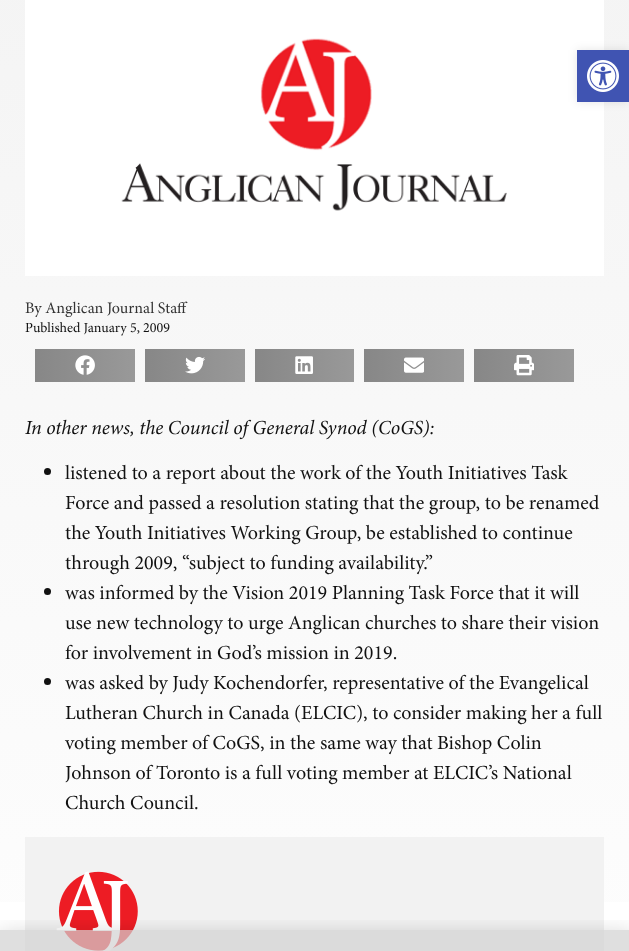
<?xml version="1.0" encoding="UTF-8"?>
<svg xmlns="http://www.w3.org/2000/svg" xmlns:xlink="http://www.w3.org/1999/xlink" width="629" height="951">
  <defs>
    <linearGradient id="g1" gradientUnits="userSpaceOnUse" x1="314" y1="-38" x2="315" y2="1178"><stop offset="0" stop-color="#f4f4f4" /><stop offset="1" stop-color="#ffffff" /></linearGradient>
    <linearGradient id="g2" gradientUnits="userSpaceOnUse" x1="35" y1="366" x2="135" y2="366"><stop offset="0" stop-color="#878787" /><stop offset="1" stop-color="#999999" /></linearGradient>
    <linearGradient id="g3" gradientUnits="userSpaceOnUse" x1="145" y1="366" x2="245" y2="366"><stop offset="0" stop-color="#878787" /><stop offset="1" stop-color="#999999" /></linearGradient>
    <linearGradient id="g4" gradientUnits="userSpaceOnUse" x1="255" y1="366" x2="354" y2="366"><stop offset="0" stop-color="#878787" /><stop offset="1" stop-color="#999999" /></linearGradient>
    <linearGradient id="g5" gradientUnits="userSpaceOnUse" x1="364" y1="366" x2="464" y2="366"><stop offset="0" stop-color="#878787" /><stop offset="1" stop-color="#999999" /></linearGradient>
    <linearGradient id="g6" gradientUnits="userSpaceOnUse" x1="474" y1="366" x2="574" y2="366"><stop offset="0" stop-color="#878787" /><stop offset="1" stop-color="#999999" /></linearGradient>
    <clipPath id="clip1"><rect x="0" y="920" width="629" height="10" /></clipPath>
  </defs>
  <rect width="100%" height="100%" fill="#ffffff" />
  <rect width="629" height="902" fill="url(#g1)" />
  <image x="25" y="0" width="579" height="276" xlink:href="image2.png" />
  <rect x="577" y="50" width="52" height="52" fill="#000000" fill-opacity="0.1" filter="blur(5px)" />
  <rect x="577" y="50" width="52" height="52" fill="#4054b2" />
  <image x="587" y="60" width="32" height="32" xlink:href="image1.png" />
  <rect x="35" y="349" width="100" height="33" fill="url(#g2)" />
  <image x="75" y="355" width="20" height="20" xlink:href="image3.png" />
  <rect x="145" y="349" width="100" height="33" fill="url(#g3)" />
  <image x="185" y="356" width="20" height="18" xlink:href="image4.png" />
  <rect x="255" y="349" width="99" height="33" fill="url(#g4)" />
  <image x="295" y="356" width="18" height="18" xlink:href="image5.png" />
  <rect x="364" y="349" width="100" height="33" fill="url(#g5)" />
  <image x="404" y="357" width="20" height="16" xlink:href="image6.png" />
  <rect x="474" y="349" width="100" height="33" fill="url(#g6)" />
  <image x="514" y="355" width="20" height="21" xlink:href="image7.png" />
  <circle cx="47.5" cy="471.5" r="3.5" fill="#111111" />
  <circle cx="47.5" cy="591.5" r="3.5" fill="#111111" />
  <circle cx="47.5" cy="681.5" r="3.5" fill="#111111" />
  <rect x="25" y="837" width="579" height="114" fill="#f2f2f2" />
  <image x="56" y="871" width="82" height="80" xlink:href="image8.png" />
  <g clip-path="url(#clip1)">
    <rect x="-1" y="935" width="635" height="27" fill="#000000" fill-opacity="0.2" filter="blur(11.5px)" />
  </g>
  <rect y="930" width="629" height="21" fill="#d1d1d1" fill-opacity="0.7" />
  <text x="25" y="313" style="font-family: Minion; font-size: 16px; fill: #333333">By Anglican Journal Staff</text>
  <text x="25" y="332" style="font-family: Minion; font-size: 14px; fill: #111111">Published January 5, 2009</text>
  <text x="25" y="434" style="font-family: Minion; font-size: 20px; font-style: italic; fill: #111111">In other news, the Council of General Synod (CoGS):</text>
  <text x="65" y="479" style="font-family: Minion; font-size: 20px; fill: #111111">listened to a report about the work of the Youth Initiatives Task</text>
  <text x="65" y="509" style="font-family: Minion; font-size: 20px; fill: #111111">Force and passed a resolution stating that the group, to be renamed</text>
  <text x="65" y="539" style="font-family: Minion; font-size: 20px; fill: #111111">the Youth Initiatives Working Group, be established to continue</text>
  <text x="65" y="569" style="font-family: Minion; font-size: 20px; fill: #111111">through 2009, “subject to funding availability.”</text>
  <text x="65" y="599" style="font-family: Minion; font-size: 20px; fill: #111111">was informed by the Vision 2019 Planning Task Force that it will</text>
  <text x="65" y="629" style="font-family: Minion; font-size: 20px; fill: #111111">use new technology to urge Anglican churches to share their vision</text>
  <text x="65" y="659" style="font-family: Minion; font-size: 20px; fill: #111111">for involvement in God’s mission in 2019.</text>
  <text x="65" y="689" style="font-family: Minion; font-size: 20px; fill: #111111">was asked by Judy Kochendorfer, representative of the Evangelical</text>
  <text x="65" y="719" style="font-family: Minion; font-size: 20px; fill: #111111">Lutheran Church in Canada (ELCIC), to consider making her a full</text>
  <text x="65" y="749" style="font-family: Minion; font-size: 20px; fill: #111111">voting member of CoGS, in the same way that Bishop Colin</text>
  <text x="65" y="779" style="font-family: Minion; font-size: 20px; fill: #111111">Johnson of Toronto is a full voting member at ELCIC’s National</text>
  <text x="65" y="809" style="font-family: Minion; font-size: 20px; fill: #111111">Church Council.</text>
</svg>
